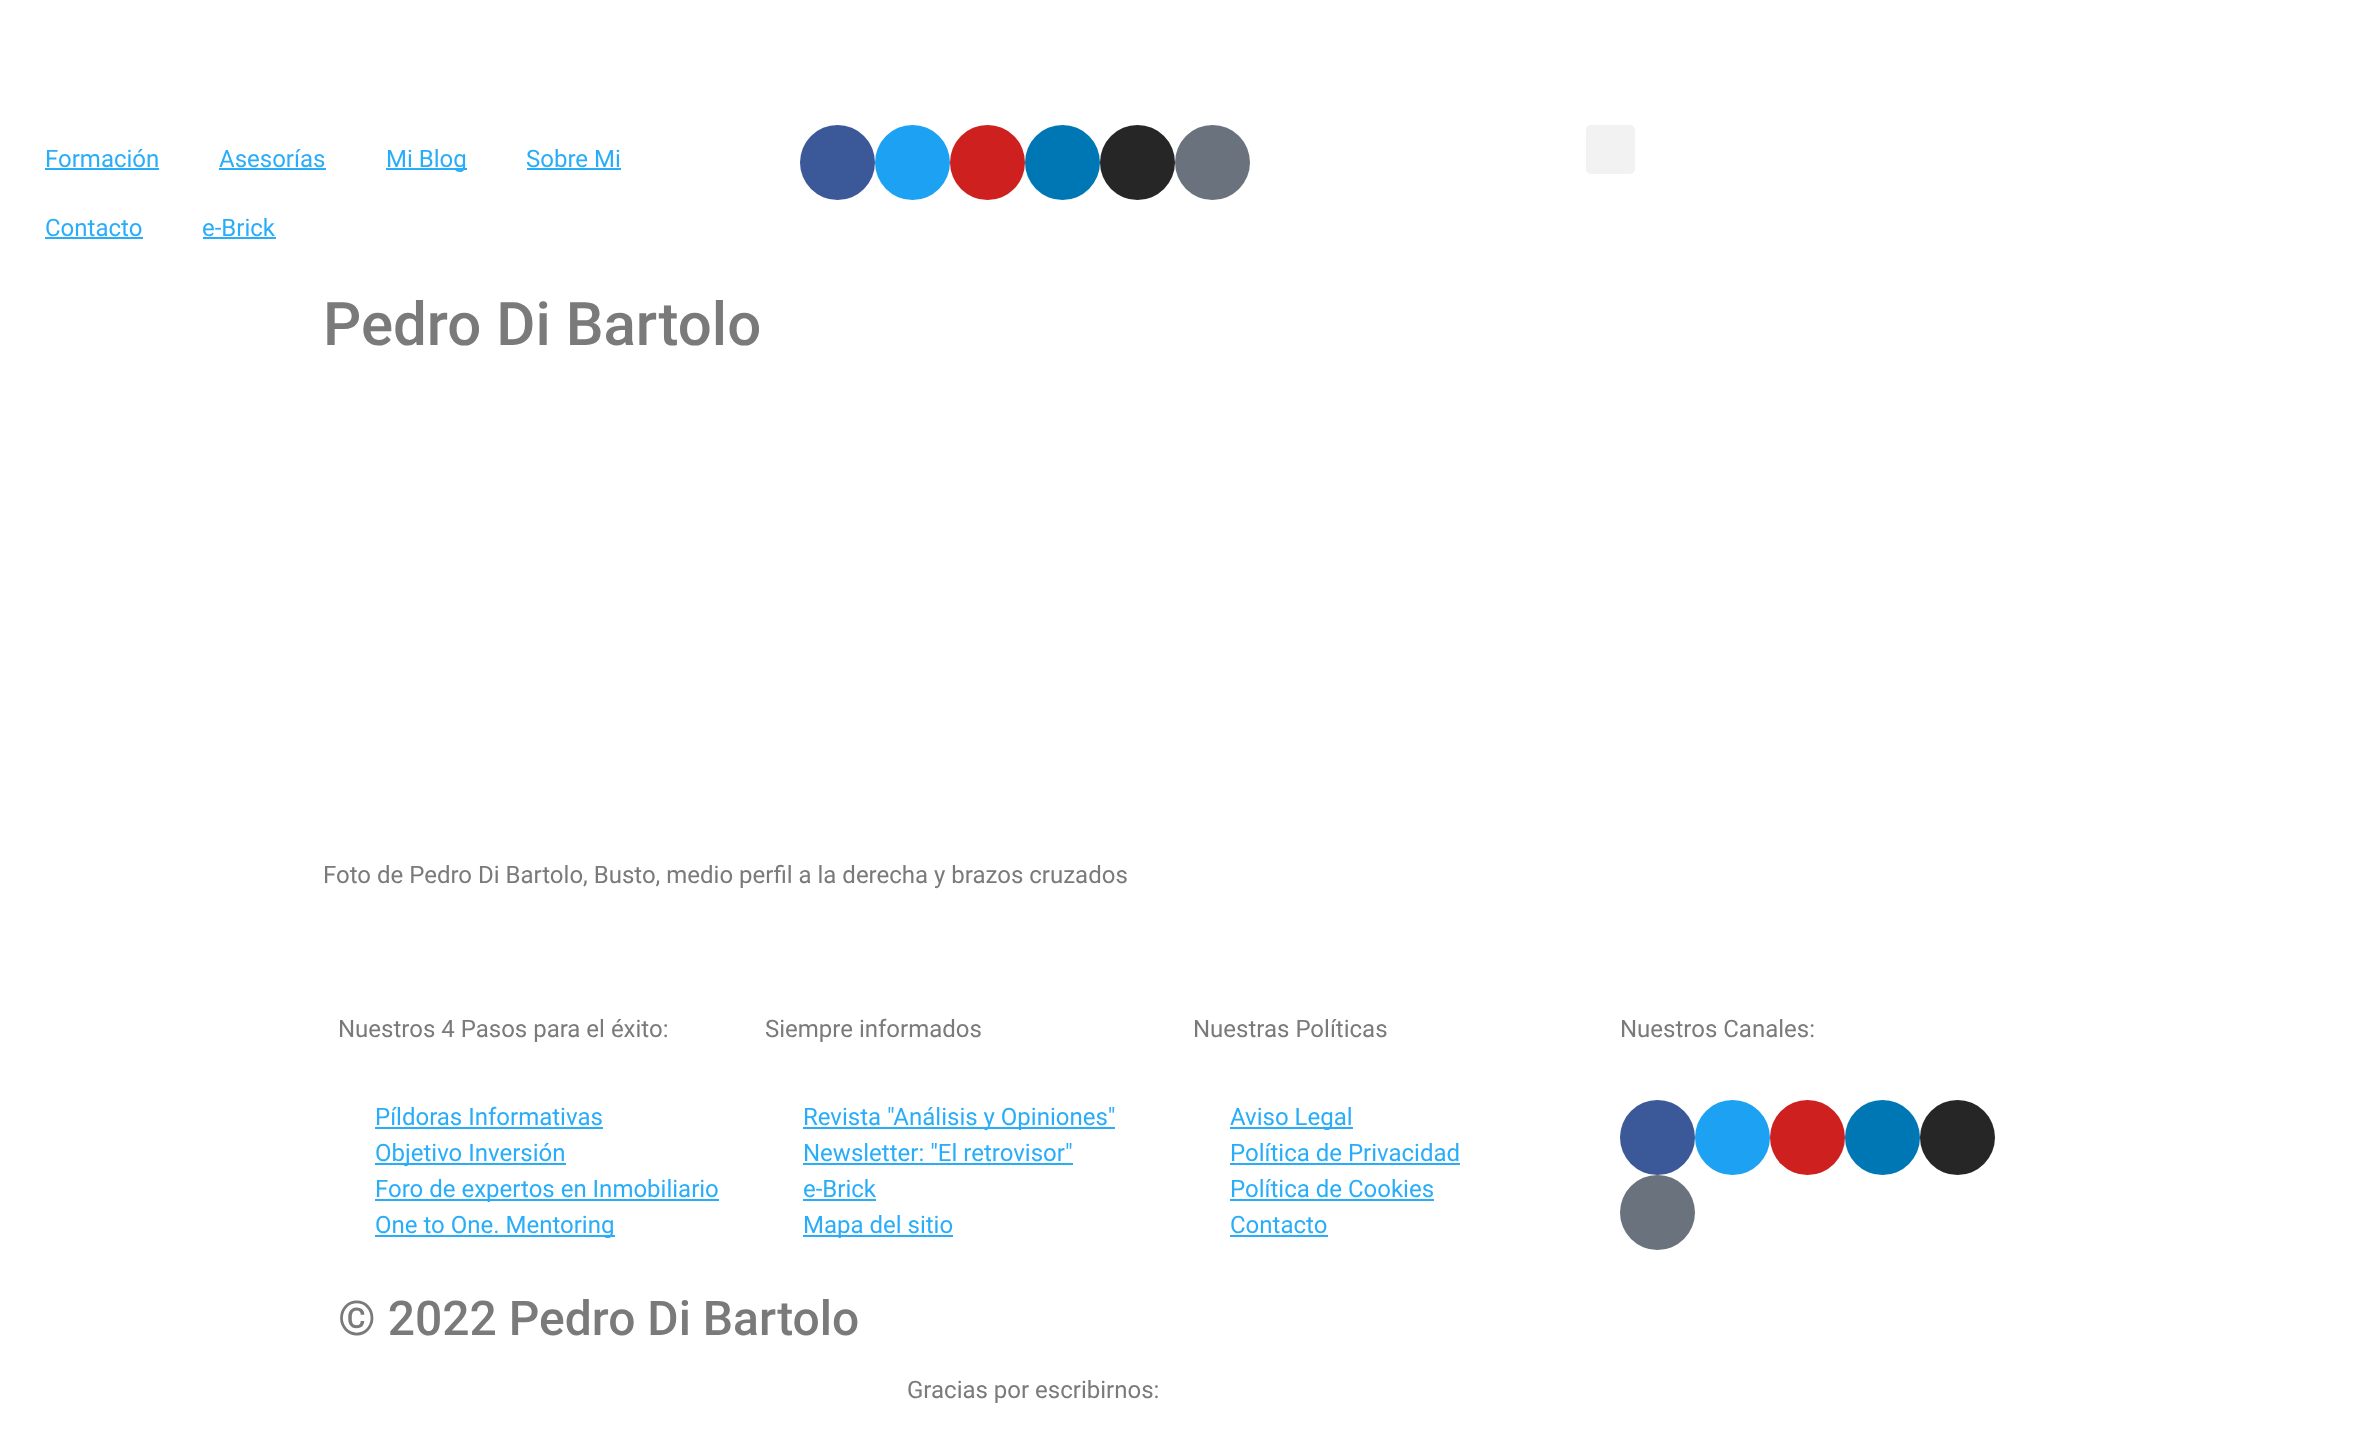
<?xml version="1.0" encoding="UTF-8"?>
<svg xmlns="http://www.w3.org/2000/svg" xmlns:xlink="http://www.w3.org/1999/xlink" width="2355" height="1450">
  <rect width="100%" height="100%" fill="#ffffff" />
  <rect x="45" y="168" width="114" height="2" fill="#2aadf8" />
  <rect x="219" y="168" width="107" height="2" fill="#2aadf8" />
  <rect x="386" y="168" width="81" height="2" fill="#2aadf8" />
  <rect x="527" y="168" width="94" height="2" fill="#2aadf8" />
  <rect x="45" y="237" width="98" height="2" fill="#2aadf8" />
  <rect x="203" y="237" width="73" height="2" fill="#2aadf8" />
  <circle cx="837.5" cy="162.5" r="37.5" fill="#3b5998" />
  <circle cx="912.5" cy="162.5" r="37.5" fill="#1da1f2" />
  <circle cx="987.5" cy="162.5" r="37.5" fill="#cd201f" />
  <circle cx="1062.5" cy="162.5" r="37.5" fill="#0077b5" />
  <circle cx="1137.5" cy="162.5" r="37.5" fill="#262626" />
  <circle cx="1212.5" cy="162.5" r="37.5" fill="#69727d" />
  <rect x="1586" y="125" width="49" height="49" rx="5" fill="#f2f2f2" />
  <rect x="375" y="1127" width="228" height="2" fill="#2aadf8" />
  <rect x="375" y="1163" width="191" height="2" fill="#2aadf8" />
  <rect x="375" y="1199" width="344" height="2" fill="#2aadf8" />
  <rect x="375" y="1235" width="240" height="2" fill="#2aadf8" />
  <rect x="803" y="1127" width="312" height="2" fill="#2aadf8" />
  <rect x="803" y="1163" width="270" height="2" fill="#2aadf8" />
  <rect x="803" y="1199" width="73" height="2" fill="#2aadf8" />
  <rect x="803" y="1235" width="150" height="2" fill="#2aadf8" />
  <rect x="1230" y="1127" width="123" height="2" fill="#2aadf8" />
  <rect x="1230" y="1163" width="230" height="2" fill="#2aadf8" />
  <rect x="1230" y="1199" width="204" height="2" fill="#2aadf8" />
  <rect x="1230" y="1235" width="98" height="2" fill="#2aadf8" />
  <circle cx="1657.5" cy="1137.5" r="37.5" fill="#3b5998" />
  <circle cx="1732.5" cy="1137.5" r="37.5" fill="#1da1f2" />
  <circle cx="1807.5" cy="1137.5" r="37.5" fill="#cd201f" />
  <circle cx="1882.5" cy="1137.5" r="37.5" fill="#0077b5" />
  <circle cx="1957.5" cy="1137.5" r="37.5" fill="#262626" />
  <circle cx="1657.5" cy="1212.5" r="37.5" fill="#69727d" />
  <text x="45" y="167" style="font-family: Roboto; font-size: 24px; fill: #2aadf8">Formación</text>
  <text x="219" y="167" style="font-family: Roboto; font-size: 24px; fill: #2aadf8">Asesorías</text>
  <text x="386" y="167" style="font-family: Roboto; font-size: 24px; fill: #2aadf8">Mi Blog</text>
  <text x="526" y="167" style="font-family: Roboto; font-size: 24px; fill: #2aadf8">Sobre Mi</text>
  <text x="45" y="236" style="font-family: Roboto; font-size: 24px; fill: #2aadf8">Contacto</text>
  <text x="202" y="236" style="font-family: Roboto; font-size: 24px; fill: #2aadf8">e-Brick</text>
  <text x="323" y="345" style="font-family: Roboto; font-size: 60px; font-weight: 500; fill: #7a7a7a">Pedro Di Bartolo</text>
  <text x="323" y="883" style="font-family: Roboto; font-size: 24px; fill: #7a7a7a">Foto de Pedro Di Bartolo, Busto, medio perfil a la derecha y brazos cruzados</text>
  <text x="338" y="1037" style="font-family: Roboto; font-size: 24px; fill: #7a7a7a">Nuestros 4 Pasos para el éxito:</text>
  <text x="375" y="1125" style="font-family: Roboto; font-size: 24px; fill: #2aadf8">Píldoras Informativas</text>
  <text x="375" y="1161" style="font-family: Roboto; font-size: 24px; fill: #2aadf8">Objetivo Inversión</text>
  <text x="375" y="1197" style="font-family: Roboto; font-size: 24px; fill: #2aadf8">Foro de expertos en Inmobiliario</text>
  <text x="375" y="1233" style="font-family: Roboto; font-size: 24px; fill: #2aadf8">One to One. Mentoring</text>
  <text x="765" y="1037" style="font-family: Roboto; font-size: 24px; fill: #7a7a7a">Siempre informados</text>
  <text x="803" y="1125" style="font-family: Roboto; font-size: 24px; fill: #2aadf8">Revista "Análisis y Opiniones"</text>
  <text x="803" y="1161" style="font-family: Roboto; font-size: 24px; fill: #2aadf8">Newsletter: "El retrovisor"</text>
  <text x="803" y="1197" style="font-family: Roboto; font-size: 24px; fill: #2aadf8">e-Brick</text>
  <text x="803" y="1233" style="font-family: Roboto; font-size: 24px; fill: #2aadf8">Mapa del sitio</text>
  <text x="1193" y="1037" style="font-family: Roboto; font-size: 24px; fill: #7a7a7a">Nuestras Políticas</text>
  <text x="1230" y="1125" style="font-family: Roboto; font-size: 24px; fill: #2aadf8">Aviso Legal</text>
  <text x="1230" y="1161" style="font-family: Roboto; font-size: 24px; fill: #2aadf8">Política de Privacidad</text>
  <text x="1230" y="1197" style="font-family: Roboto; font-size: 24px; fill: #2aadf8">Política de Cookies</text>
  <text x="1230" y="1233" style="font-family: Roboto; font-size: 24px; fill: #2aadf8">Contacto</text>
  <text x="1620" y="1037" style="font-family: Roboto; font-size: 24px; fill: #7a7a7a">Nuestros Canales:</text>
  <text x="338" y="1335" style="font-family: Roboto; font-size: 48px; font-weight: 500; fill: #7a7a7a">© 2022 Pedro Di Bartolo</text>
  <text x="907" y="1398" style="font-family: Roboto; font-size: 24px; fill: #7a7a7a">Gracias por escribirnos:</text>
</svg>
